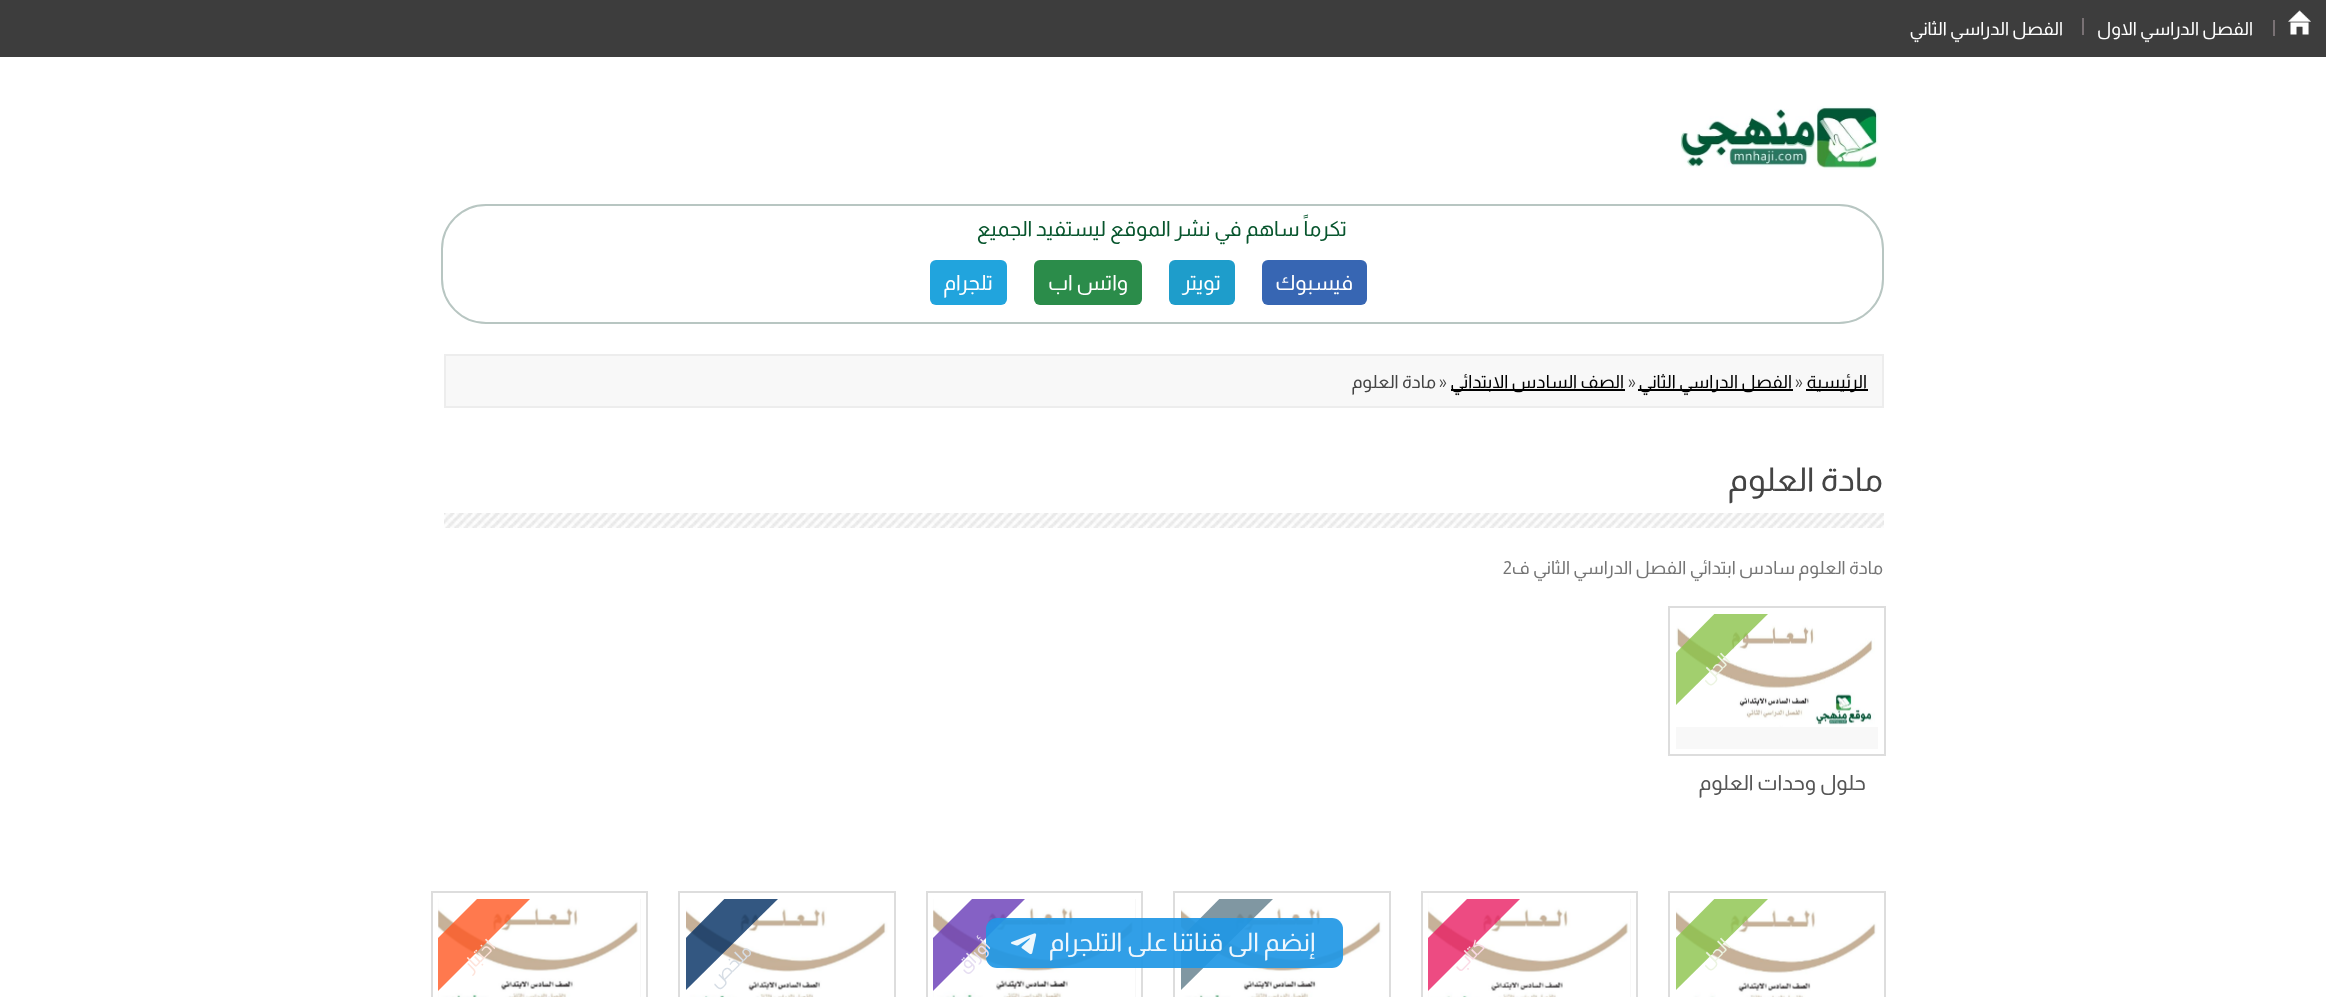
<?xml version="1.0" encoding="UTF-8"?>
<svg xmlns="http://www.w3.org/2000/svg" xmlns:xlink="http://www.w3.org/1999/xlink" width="2326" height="997">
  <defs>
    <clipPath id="clip1"><rect x="1676" y="614" width="202" height="135" /></clipPath>
    <clipPath id="clip2"><rect x="1676" y="899" width="202" height="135" /></clipPath>
    <clipPath id="clip3"><rect x="1428" y="899" width="203" height="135" /></clipPath>
    <clipPath id="clip4"><rect x="1181" y="899" width="202" height="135" /></clipPath>
    <clipPath id="clip5"><rect x="933" y="899" width="203" height="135" /></clipPath>
    <clipPath id="clip6"><rect x="686" y="899" width="202" height="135" /></clipPath>
    <clipPath id="clip7"><rect x="438" y="899" width="203" height="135" /></clipPath>
  </defs>
  <rect width="100%" height="100%" fill="#ffffff" />
  <rect width="2326" height="57" fill="#3d3d3d" />
  <image x="2288" y="10" width="23" height="25" xlink:href="image1.png" />
  <rect x="2273" y="20" width="2" height="16" fill="#797174" />
  <rect x="2082" y="18" width="2" height="17" fill="#797174" />
  <image x="1680" y="106" width="200" height="64" xlink:href="image2.png" />
  <rect x="442" y="205" width="1441" height="118" rx="44" fill="none" stroke="#b8c6c2" stroke-width="2" />
  <rect x="1262" y="260" width="105" height="45" rx="6" fill="#3766b3" />
  <rect x="1169" y="260" width="66" height="45" rx="6" fill="#1e9dcb" />
  <rect x="1034" y="260" width="108" height="45" rx="6" fill="#2b8c4a" />
  <rect x="930" y="260" width="77" height="45" rx="6" fill="#21a4dd" />
  <rect x="445" y="355" width="1438" height="52" fill="#f8f8f8" stroke="#ededed" stroke-width="2" />
  <rect x="1806" y="389" width="62" height="2" fill="#000000" />
  <rect x="1638" y="389" width="155" height="2" fill="#000000" />
  <rect x="1451" y="389" width="174" height="2" fill="#000000" />
  <image x="444" y="513" width="1440" height="15" xlink:href="image3.png" />
  <rect x="1676" y="727" width="202" height="22" fill="#f8f8f8" />
  <image x="1676" y="614" width="202" height="113" xlink:href="image4.png" />
  <rect x="1669" y="607" width="216" height="148" fill="none" stroke="#dddddd" stroke-width="2" />
  <g clip-path="url(#clip1)">
    <path d="M 1647 682 l 95 -96 l 27 27 l -96 95 z" fill="#8bc34a" fill-opacity="0.8" />
  </g>
  <image x="1676" y="899" width="202" height="98" xlink:href="image5.png" />
  <rect x="1669" y="892" width="216" height="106" fill="none" stroke="#dddddd" stroke-width="2" />
  <g clip-path="url(#clip2)">
    <path d="M 1647 967 l 95 -96 l 27 27 l -96 95 z" fill="#8bc34a" fill-opacity="0.8" />
  </g>
  <rect x="1428" y="899" width="203" height="98" fill="#f8f8f8" />
  <image x="1428" y="899" width="202" height="98" xlink:href="image6.png" />
  <rect x="1422" y="892" width="215" height="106" fill="none" stroke="#dddddd" stroke-width="2" />
  <g clip-path="url(#clip3)">
    <path d="M 1399 967 l 96 -96 l 26 27 l -95 95 z" fill="#e91e63" fill-opacity="0.8" />
  </g>
  <image x="1181" y="899" width="202" height="98" xlink:href="image7.png" />
  <rect x="1174" y="892" width="216" height="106" fill="none" stroke="#dddddd" stroke-width="2" />
  <g clip-path="url(#clip4)">
    <path d="M 1152 967 l 95 -96 l 27 27 l -96 95 z" fill="#607d8b" fill-opacity="0.8" />
  </g>
  <rect x="933" y="899" width="203" height="98" fill="#f8f8f8" />
  <image x="933" y="899" width="202" height="98" xlink:href="image8.png" />
  <rect x="927" y="892" width="215" height="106" fill="none" stroke="#dddddd" stroke-width="2" />
  <g clip-path="url(#clip5)">
    <path d="M 904 967 l 96 -96 l 26 27 l -95 95 z" fill="#673ab7" fill-opacity="0.8" />
  </g>
  <image x="686" y="899" width="202" height="98" xlink:href="image9.png" />
  <rect x="679" y="892" width="216" height="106" fill="none" stroke="#dddddd" stroke-width="2" />
  <g clip-path="url(#clip6)">
    <path d="M 657 967 l 95 -96 l 27 27 l -96 95 z" fill="#002d61" fill-opacity="0.8" />
  </g>
  <rect x="438" y="899" width="203" height="98" fill="#f8f8f8" />
  <image x="438" y="899" width="202" height="98" xlink:href="image10.png" />
  <rect x="432" y="892" width="215" height="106" fill="none" stroke="#dddddd" stroke-width="2" />
  <g clip-path="url(#clip7)">
    <path d="M 409 967 l 96 -96 l 26 27 l -95 95 z" fill="#ff5722" fill-opacity="0.8" />
  </g>
  <rect x="986" y="918" width="357" height="50" rx="11" fill="#1f97e5" fill-opacity="0.92" />
  <image x="1011" y="933" width="26" height="22" xlink:href="image11.png" />
  <text x="2253" y="35" style="font-family: Almarai; font-size: 18px; direction: rtl; fill: #ffffff">الفصل الدراسي الاول</text>
  <text x="2063" y="35" style="font-family: Almarai; font-size: 18px; direction: rtl; fill: #ffffff">الفصل الدراسي الثاني</text>
  <text x="1347" y="236" style="font-family: Almarai; font-size: 21px; direction: rtl; fill: #07552d">تكرماً ساهم في نشر الموقع ليستفيد الجميع</text>
  <text x="1353" y="290" style="font-family: Almarai; font-size: 21px; direction: rtl; fill: #ffffff">فيسبوك</text>
  <text x="1221" y="290" style="font-family: Almarai; font-size: 21px; direction: rtl; fill: #ffffff">تويتر</text>
  <text x="1128" y="290" style="font-family: Almarai; font-size: 21px; direction: rtl; fill: #ffffff">واتس اب</text>
  <text x="993" y="290" style="font-family: Almarai; font-size: 21px; direction: rtl; fill: #ffffff">تلجرام</text>
  <text x="1867" y="388" style="font-family: Almarai; font-size: 18px; direction: rtl; fill: #000000">الرئيسية</text>
  <text x="1795" y="388" style="font-family: Almarai; font-size: 18px; fill: #444444">»</text>
  <text x="1792" y="388" style="font-family: Almarai; font-size: 18px; direction: rtl; fill: #000000">الفصل الدراسي الثاني</text>
  <text x="1628" y="388" style="font-family: Almarai; font-size: 18px; fill: #444444">»</text>
  <text x="1624" y="388" style="font-family: Almarai; font-size: 18px; direction: rtl; fill: #000000">الصف السادس الابتدائي</text>
  <text x="1439" y="388" style="font-family: Almarai; font-size: 18px; fill: #444444">»</text>
  <text x="1436" y="388" style="font-family: Almarai; font-size: 18px; direction: rtl; fill: #444444">مادة العلوم</text>
  <text x="1883" y="491" style="font-family: Almarai; font-size: 33px; direction: rtl; fill: #444444">مادة العلوم</text>
  <text x="1883" y="574" style="font-family: Almarai; font-size: 18px; direction: rtl; fill: #757575">مادة العلوم سادس ابتدائي الفصل الدراسي الثاني ف</text>
  <text x="1503" y="574" style="font-family: Almarai; font-size: 18px; fill: #757575">2</text>
  <text x="1731" y="661" transform="rotate(-45 1731 661)" style="font-family: Almarai; font-size: 18px; direction: rtl; fill: #ecf4e1">الحل</text>
  <text x="1866" y="790" style="font-family: Almarai; font-size: 21px; direction: rtl; fill: #555555">حلول وحدات العلوم</text>
  <text x="1731" y="946" transform="rotate(-45 1731 946)" style="font-family: Almarai; font-size: 18px; direction: rtl; fill: #ecf4e1">الحل</text>
  <text x="1486" y="947" transform="rotate(-45 1486 947)" style="font-family: Almarai; font-size: 18px; direction: rtl; fill: #fbdae5">كتاب</text>
  <text x="991" y="947" transform="rotate(-45 991 947)" style="font-family: Almarai; font-size: 18px; direction: rtl; fill: #e6def2">أوراق</text>
  <text x="753" y="952" transform="rotate(-45 753 952)" style="font-family: Almarai; font-size: 18px; direction: rtl; fill: #d6dde5">ملخص</text>
  <text x="496" y="947" transform="rotate(-45 496 947)" style="font-family: Almarai; font-size: 18px; direction: rtl; fill: #fee3da">اختبار</text>
  <text x="1315" y="951" style="font-family: Almarai; font-size: 25.5px; direction: rtl; fill: #eef7fd">إنضم الى قناتنا على التلجرام</text>
</svg>
